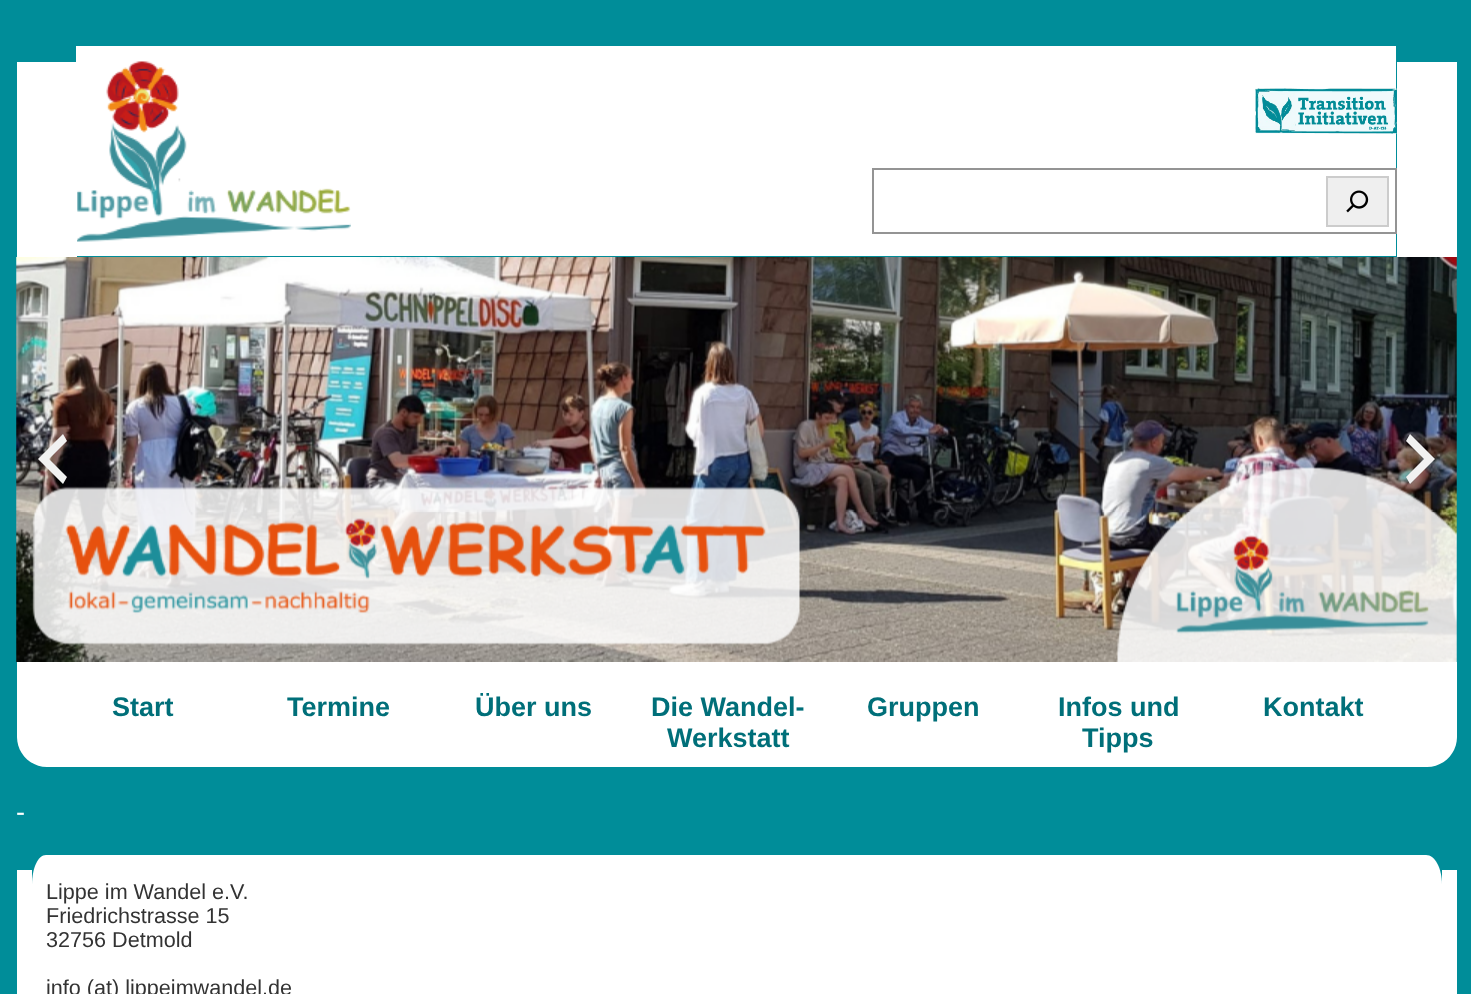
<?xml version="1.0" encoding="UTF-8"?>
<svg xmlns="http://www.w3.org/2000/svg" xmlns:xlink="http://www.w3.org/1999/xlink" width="1471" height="994">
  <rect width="100%" height="100%" fill="#008d99" />
  <rect x="76" y="46" width="1320" height="210" fill="#ffffff" />
  <image x="77" y="61" width="274" height="181" xlink:href="image1.png" />
  <rect x="1397" y="62" width="60" height="195" fill="#ffffff" />
  <rect x="17" y="62" width="60" height="195" fill="#ffffff" />
  <image x="1255" y="88" width="142" height="46" xlink:href="image2.png" />
  <rect x="873" y="169" width="523" height="64" fill="none" stroke="#949494" stroke-width="2" />
  <rect x="1327" y="177" width="61" height="49" fill="#efefef" stroke="#cccccc" stroke-width="2" />
  <image x="1346" y="190" width="23" height="23" xlink:href="image3.png" />
  <image x="16" y="257" width="1441" height="405" xlink:href="image4.png" />
  <image x="16" y="257" width="1441" height="405" xlink:href="image5.png" />
  <path d="M 67 441 l -18 18 l 18 18 l -4 7 l -25 -25 l 25 -25 z" fill="#f1f1f1" />
  <path d="M 1406 477 l 18 -18 l -18 -18 l 4 -7 l 25 25 l -25 25 z" fill="#f1f1f1" />
  <path d="M 17 662 h 1440 v 75 c 0 16.5 -13.5 30 -30 30 h -1380 c -16.5 0 -30 -13.5 -30 -30 z" fill="#ffffff" />
  <path d="M 46 855 h 1380 c 9 0 16 13 16 30 v 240 c 0 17 -7 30 -16 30 h -1380 c -8 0 -14 -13 -14 -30 v -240 c 0 -17 6 -30 14 -30 z" fill="#ffffff" />
  <rect x="1442" y="870" width="15" height="124" fill="#ffffff" />
  <rect x="17" y="870" width="15" height="124" fill="#ffffff" />
  <text x="112" y="716" style="font-family: Liberation Sans; font-size: 27px; font-weight: bold; fill: #006f79">Start</text>
  <text x="287" y="716" style="font-family: Liberation Sans; font-size: 27px; font-weight: bold; fill: #006f79">Termine</text>
  <text x="475" y="716" style="font-family: Liberation Sans; font-size: 27px; font-weight: bold; fill: #006f79">Über uns</text>
  <text x="651" y="716" style="font-family: Liberation Sans; font-size: 27px; font-weight: bold; fill: #006f79">Die Wandel-</text>
  <text x="667" y="747" style="font-family: Liberation Sans; font-size: 27px; font-weight: bold; fill: #006f79">Werkstatt</text>
  <text x="867" y="716" style="font-family: Liberation Sans; font-size: 27px; font-weight: bold; fill: #006f79">Gruppen</text>
  <text x="1058" y="716" style="font-family: Liberation Sans; font-size: 27px; font-weight: bold; fill: #006f79">Infos und</text>
  <text x="1082" y="747" style="font-family: Liberation Sans; font-size: 27px; font-weight: bold; fill: #006f79">Tipps</text>
  <text x="1263" y="716" style="font-family: Liberation Sans; font-size: 27px; font-weight: bold; fill: #006f79">Kontakt</text>
  <text x="16" y="821" style="font-family: Liberation Sans; font-size: 27px; fill: #ffffff">-</text>
  <text x="46" y="899" style="font-family: Liberation Sans; font-size: 21.6px; fill: #333333">Lippe im Wandel e.V.</text>
  <text x="46" y="923" style="font-family: Liberation Sans; font-size: 21.6px; fill: #333333">Friedrichstrasse 15</text>
  <text x="46" y="947" style="font-family: Liberation Sans; font-size: 21.6px; fill: #333333">32756 Detmold</text>
  <text x="46" y="995" style="font-family: Liberation Sans; font-size: 21.6px; fill: #333333">info (at) lippeimwandel.de</text>
</svg>
